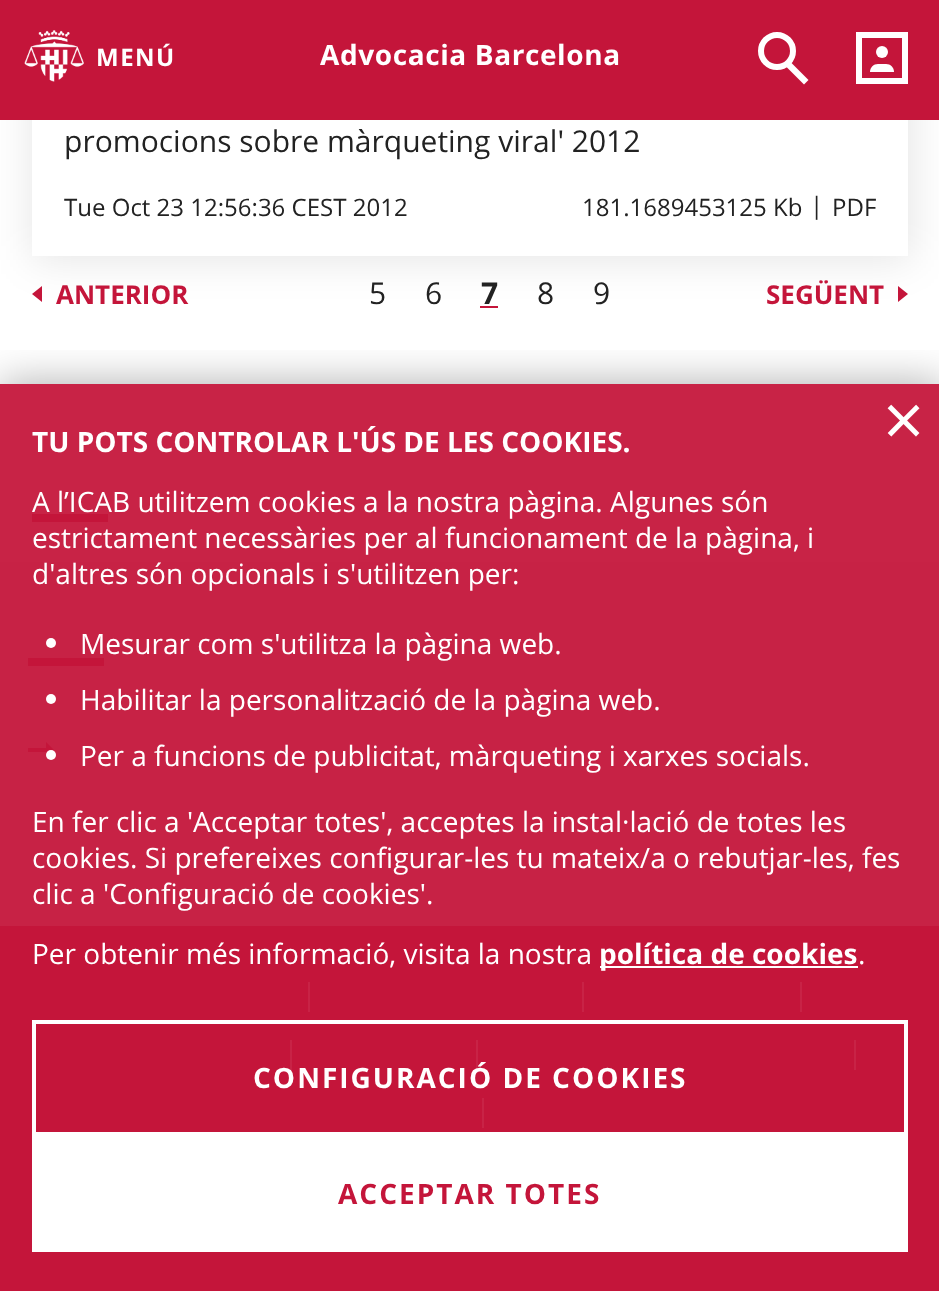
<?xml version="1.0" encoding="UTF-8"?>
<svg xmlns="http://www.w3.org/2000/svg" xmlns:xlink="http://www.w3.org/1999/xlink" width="939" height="1291">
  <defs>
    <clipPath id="clip1"><rect x="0" y="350" width="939" height="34" /></clipPath>
  </defs>
  <rect width="100%" height="100%" fill="#ffffff" />
  <rect x="480" y="306" width="18" height="2" fill="#c4153a" />
  <rect x="32" y="-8" width="880" height="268" fill="#000000" fill-opacity="0.1" filter="blur(21px)" />
  <rect width="939" height="120" fill="#c4153a" />
  <image x="24" y="30" width="60" height="52" xlink:href="image1.png" />
  <circle cx="777" cy="51" r="16" fill="none" stroke="#ffffff" stroke-width="6" />
  <path d="M 790 61.5 l 18.5 18.5 l -4.5 4.5 l -18.5 -18.5 z" fill="#ffffff" />
  <rect x="859" y="35" width="46" height="46" fill="none" stroke="#ffffff" stroke-width="6" />
  <circle cx="882" cy="52" r="6" fill="#ffffff" />
  <path d="M 878 64 h 8 c 4.5 0 8 3.5 8 8 h -24 c 0 -4.5 3.5 -8 8 -8 z" fill="#ffffff" />
  <rect y="384" width="939" height="178" fill="#c82346" />
  <rect x="32" y="120" width="876" height="136" fill="#ffffff" />
  <path d="M 42 286 v 16 l -10 -8 z" fill="#c4153a" />
  <path d="M 898 302 v -16 l 10 8 z" fill="#c4153a" />
  <rect x="32" y="514" width="76" height="8" fill="#c4153a" />
  <rect y="562" width="939" height="364" fill="#c72245" />
  <rect x="28" y="658" width="76" height="8" fill="#c4153a" />
  <path d="M 46 758 v -16 l 8 8 z" fill="#c4153a" />
  <rect x="28" y="748" width="22" height="4" fill="#c4153a" />
  <rect y="926" width="939" height="365" fill="#c4153a" />
  <rect x="308" y="982" width="2" height="30" fill="#c82346" />
  <rect x="582" y="982" width="2" height="30" fill="#c82346" />
  <rect x="800" y="982" width="2" height="30" fill="#c82346" />
  <rect x="290" y="1040" width="2" height="30" fill="#c82346" />
  <rect x="476" y="1040" width="2" height="30" fill="#c82346" />
  <rect x="854" y="1040" width="2" height="30" fill="#c82346" />
  <rect x="482" y="1098" width="2" height="30" fill="#c82346" />
  <g clip-path="url(#clip1)">
    <rect y="382" width="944" height="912" fill="#000000" fill-opacity="0.3" filter="blur(21px)" />
  </g>
  <circle cx="51" cy="643" r="5" fill="#ffffff" />
  <circle cx="51" cy="699" r="5" fill="#ffffff" />
  <circle cx="51" cy="755" r="5" fill="#ffffff" />
  <rect x="600" y="966" width="258" height="2" fill="#ffffff" />
  <rect x="34" y="1022" width="872" height="112" fill="none" stroke="#ffffff" stroke-width="4" />
  <rect x="32" y="1136" width="876" height="116" fill="#ffffff" />
  <text x="96" y="66" style="font-family: Open Sans; font-size: 24px; font-weight: bold; letter-spacing: 1.5px; fill: #ffffff">MENÚ</text>
  <text x="320" y="65" style="font-family: Open Sans; font-size: 28px; font-weight: bold; letter-spacing: 0.6px; fill: #ffffff">Advocacia Barcelona</text>
  <text x="64" y="152" style="font-family: Open Sans; font-size: 30px; fill: #222222">promocions sobre màrqueting viral' 2012</text>
  <text x="64" y="216" style="font-family: Open Sans; font-size: 24px; fill: #222222">Tue Oct 23 12:56:36 CEST 2012</text>
  <text x="582" y="216" style="font-family: Open Sans; font-size: 24px; fill: #222222">181.1689453125 Kb</text>
  <text x="810" y="214" style="font-family: Open Sans; font-size: 24px; fill: #222222">|</text>
  <text x="832" y="216" style="font-family: Open Sans; font-size: 24px; fill: #222222">PDF</text>
  <text x="56" y="304" style="font-family: Open Sans; font-size: 26px; font-weight: bold; fill: #c4153a">ANTERIOR</text>
  <text x="369" y="304" style="font-family: Open Sans; font-size: 30px; fill: #222222">5</text>
  <text x="425" y="304" style="font-family: Open Sans; font-size: 30px; fill: #222222">6</text>
  <text x="481" y="304" style="font-family: Open Sans; font-size: 30px; font-weight: bold; fill: #222222">7</text>
  <text x="537" y="304" style="font-family: Open Sans; font-size: 30px; fill: #222222">8</text>
  <text x="593" y="304" style="font-family: Open Sans; font-size: 30px; fill: #222222">9</text>
  <text x="766" y="304" style="font-family: Open Sans; font-size: 26px; font-weight: bold; fill: #c4153a">SEGÜENT</text>
  <text x="883" y="446" style="font-family: Open Sans; font-size: 72px; fill: #ffffff">×</text>
  <text x="32" y="452" style="font-family: Open Sans; font-size: 28px; font-weight: bold; fill: #ffffff">TU POTS CONTROLAR L'ÚS DE LES COOKIES.</text>
  <text x="32" y="512" style="font-family: Open Sans; font-size: 28px; fill: #ffffff">A l’ICAB utilitzem cookies a la nostra pàgina. Algunes són</text>
  <text x="32" y="548" style="font-family: Open Sans; font-size: 28px; fill: #ffffff">estrictament necessàries per al funcionament de la pàgina, i</text>
  <text x="32" y="584" style="font-family: Open Sans; font-size: 28px; fill: #ffffff">d'altres són opcionals i s'utilitzen per:</text>
  <text x="80" y="654" style="font-family: Open Sans; font-size: 28px; fill: #ffffff">Mesurar com s'utilitza la pàgina web.</text>
  <text x="80" y="710" style="font-family: Open Sans; font-size: 28px; fill: #ffffff">Habilitar la personalització de la pàgina web.</text>
  <text x="80" y="766" style="font-family: Open Sans; font-size: 28px; fill: #ffffff">Per a funcions de publicitat, màrqueting i xarxes socials.</text>
  <text x="32" y="832" style="font-family: Open Sans; font-size: 28px; fill: #ffffff">En fer clic a 'Acceptar totes', acceptes la instal·lació de totes les</text>
  <text x="32" y="868" style="font-family: Open Sans; font-size: 28px; fill: #ffffff">cookies. Si prefereixes configurar-les tu mateix/a o rebutjar-les, fes</text>
  <text x="32" y="904" style="font-family: Open Sans; font-size: 28px; fill: #ffffff">clic a 'Configuració de cookies'.</text>
  <text x="32" y="964" style="font-family: Open Sans; font-size: 28px; fill: #ffffff">Per obtenir més informació, visita la nostra</text>
  <text x="599" y="964" style="font-family: Open Sans; font-size: 28px; font-weight: bold; fill: #ffffff">política de cookies</text>
  <text x="858" y="964" style="font-family: Open Sans; font-size: 28px; fill: #ffffff">.</text>
  <text x="253" y="1088" style="font-family: Open Sans; font-size: 28px; font-weight: bold; letter-spacing: 2px; fill: #ffffff">CONFIGURACIÓ DE COOKIES</text>
  <text x="338" y="1204" style="font-family: Open Sans; font-size: 28px; font-weight: bold; letter-spacing: 2px; fill: #c4153a">ACCEPTAR TOTES</text>
</svg>
